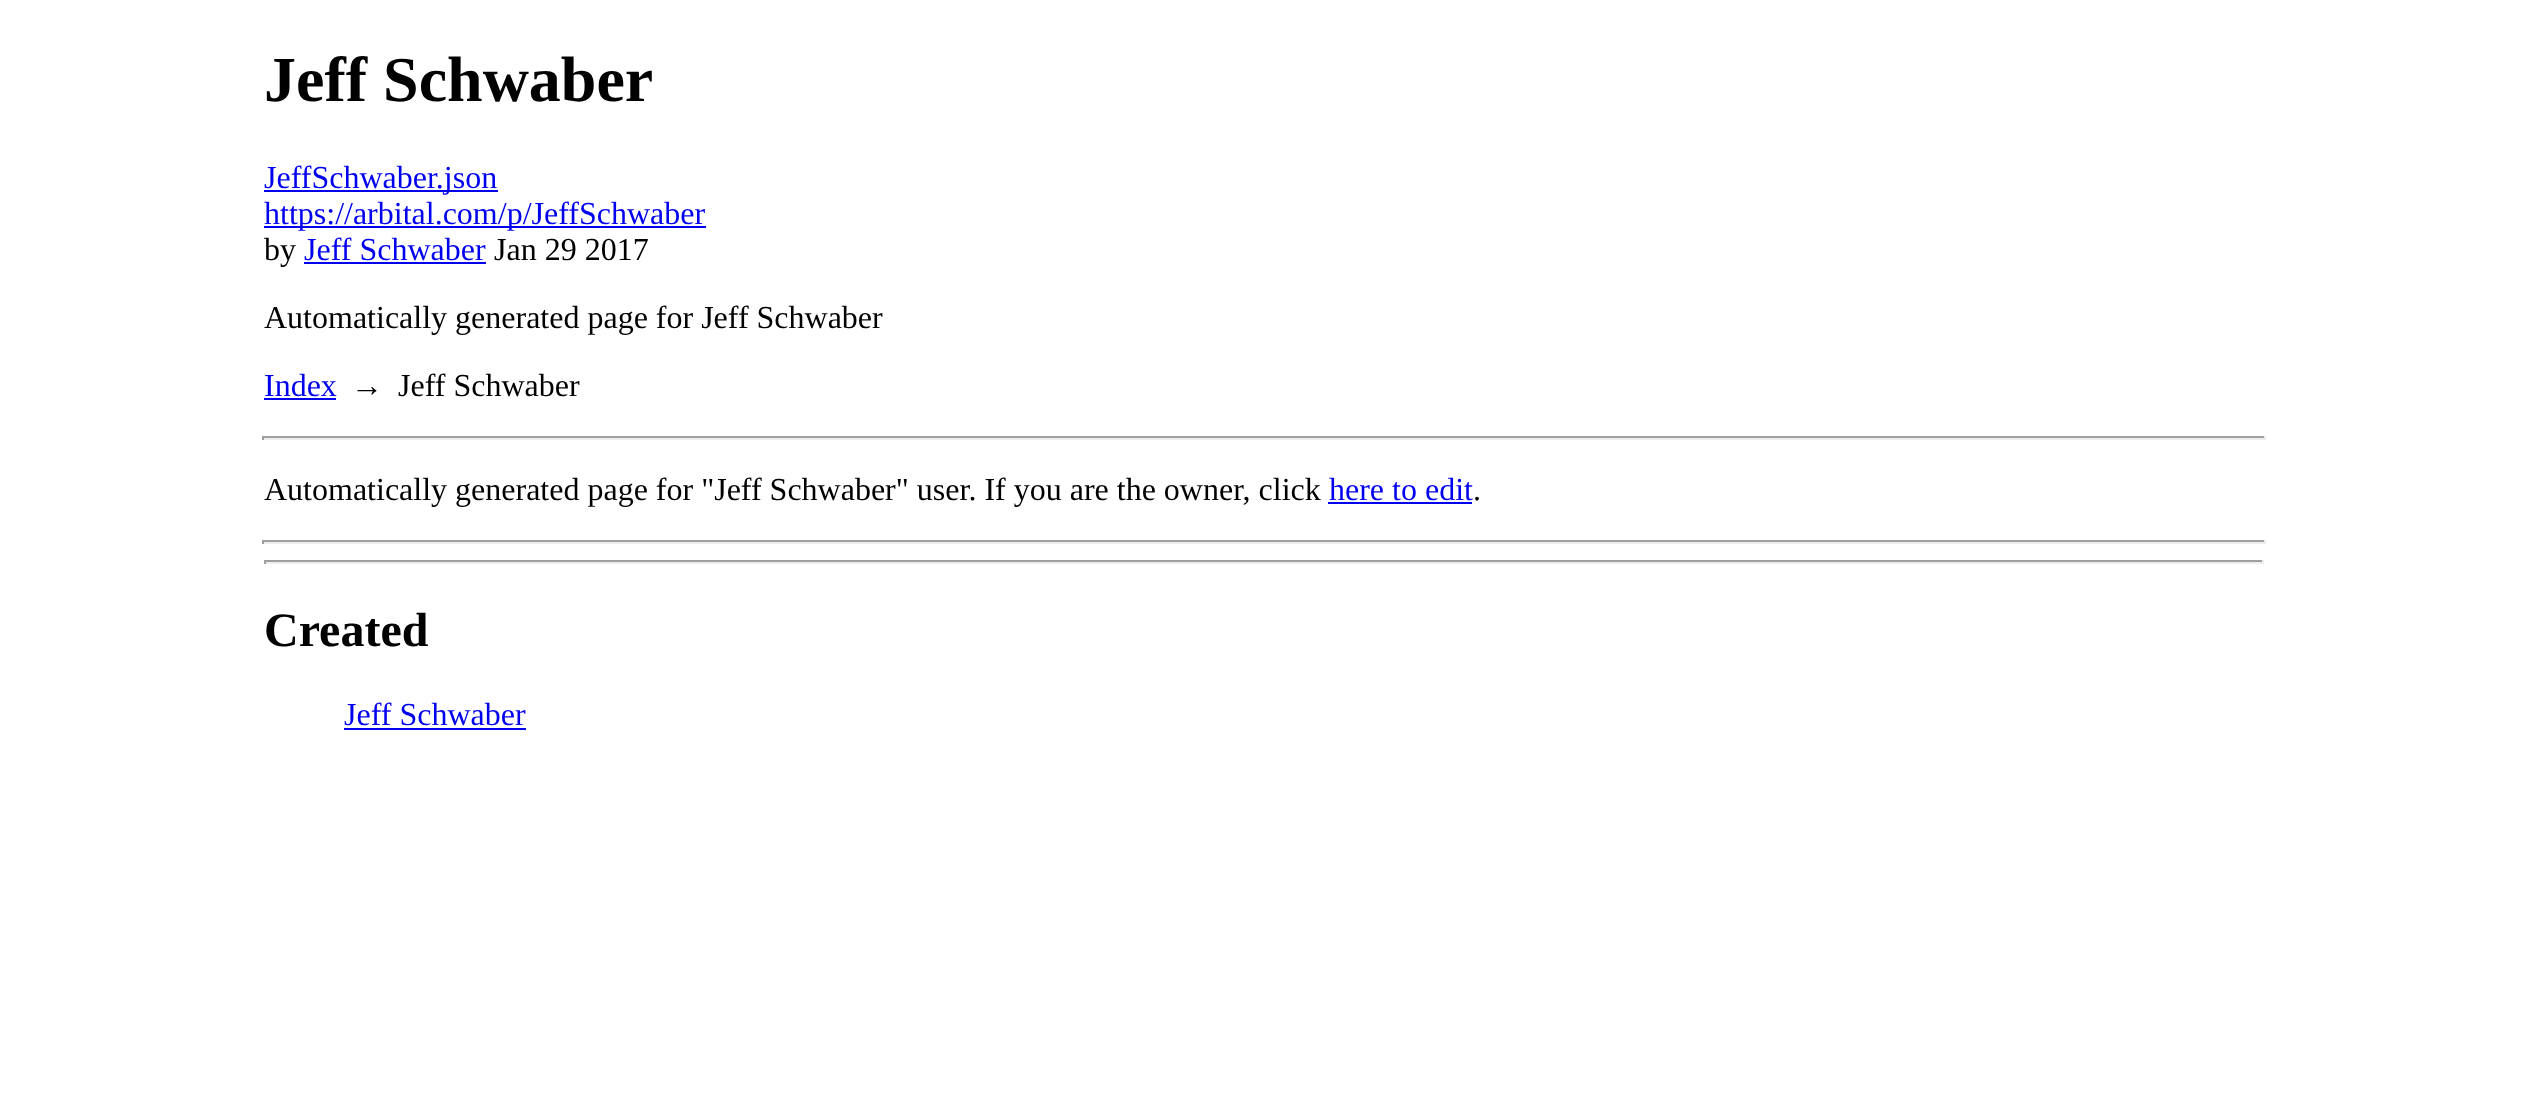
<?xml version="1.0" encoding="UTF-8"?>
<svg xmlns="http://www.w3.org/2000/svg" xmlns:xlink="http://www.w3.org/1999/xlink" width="2527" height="1114">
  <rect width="100%" height="100%" fill="#ffffff" />
  <rect x="264" y="190" width="234" height="2" fill="#0000ee" />
  <rect x="264" y="226" width="442" height="2" fill="#0000ee" />
  <rect x="304" y="262" width="182" height="2" fill="#0000ee" />
  <rect x="264" y="398" width="72" height="2" fill="#0000ee" />
  <rect x="262" y="436" width="2004" height="2" fill="#9f9f9f" />
  <rect x="2264" y="436" width="2" height="4" fill="#eeeeee" />
  <rect x="262" y="438" width="2004" height="2" fill="#eeeeee" />
  <rect x="262" y="436" width="2" height="4" fill="#9f9f9f" />
  <rect x="1328" y="502" width="144" height="2" fill="#0000ee" />
  <rect x="262" y="540" width="2004" height="2" fill="#9f9f9f" />
  <rect x="2264" y="540" width="2" height="4" fill="#eeeeee" />
  <rect x="262" y="542" width="2004" height="2" fill="#eeeeee" />
  <rect x="262" y="540" width="2" height="4" fill="#9f9f9f" />
  <rect x="264" y="560" width="2000" height="2" fill="#9f9f9f" />
  <rect x="2262" y="560" width="2" height="4" fill="#eeeeee" />
  <rect x="264" y="562" width="2000" height="2" fill="#eeeeee" />
  <rect x="264" y="560" width="2" height="4" fill="#9f9f9f" />
  <rect x="344" y="728" width="182" height="2" fill="#0000ee" />
  <text x="264" y="101" style="font-family: Liberation Serif; font-size: 64px; font-weight: bold; fill: #000000">Jeff Schwaber</text>
  <text x="264" y="188" style="font-family: Liberation Serif; font-size: 32px; fill: #0000ee">JeffSchwaber.json</text>
  <text x="264" y="224" style="font-family: Liberation Serif; font-size: 32px; fill: #0000ee">https://arbital.com/p/JeffSchwaber</text>
  <text x="264" y="260" style="font-family: Liberation Serif; font-size: 32px; fill: #000000">by</text>
  <text x="304" y="260" style="font-family: Liberation Serif; font-size: 32px; fill: #0000ee">Jeff Schwaber</text>
  <text x="494" y="260" style="font-family: Liberation Serif; font-size: 32px; fill: #000000">Jan 29 2017</text>
  <text x="264" y="328" style="font-family: Liberation Serif; font-size: 32px; fill: #000000">Automatically generated page for Jeff Schwaber</text>
  <text x="264" y="396" style="font-family: Liberation Serif; font-size: 32px; fill: #0000ee">Index</text>
  <text x="351" y="396" style="font-family: Liberation Serif; font-size: 32px; fill: #000000">→</text>
  <text x="398" y="396" style="font-family: Liberation Serif; font-size: 32px; fill: #000000">Jeff Schwaber</text>
  <text x="264" y="500" style="font-family: Liberation Serif; font-size: 32px; fill: #000000">Automatically generated page for "Jeff Schwaber" user. If you are the owner, click</text>
  <text x="1329" y="500" style="font-family: Liberation Serif; font-size: 32px; fill: #0000ee">here to edit</text>
  <text x="1473" y="500" style="font-family: Liberation Serif; font-size: 32px; fill: #000000">.</text>
  <text x="264" y="646" style="font-family: Liberation Serif; font-size: 48px; font-weight: bold; fill: #000000">Created</text>
  <text x="344" y="725" style="font-family: Liberation Serif; font-size: 32px; fill: #0000ee">Jeff Schwaber</text>
</svg>
